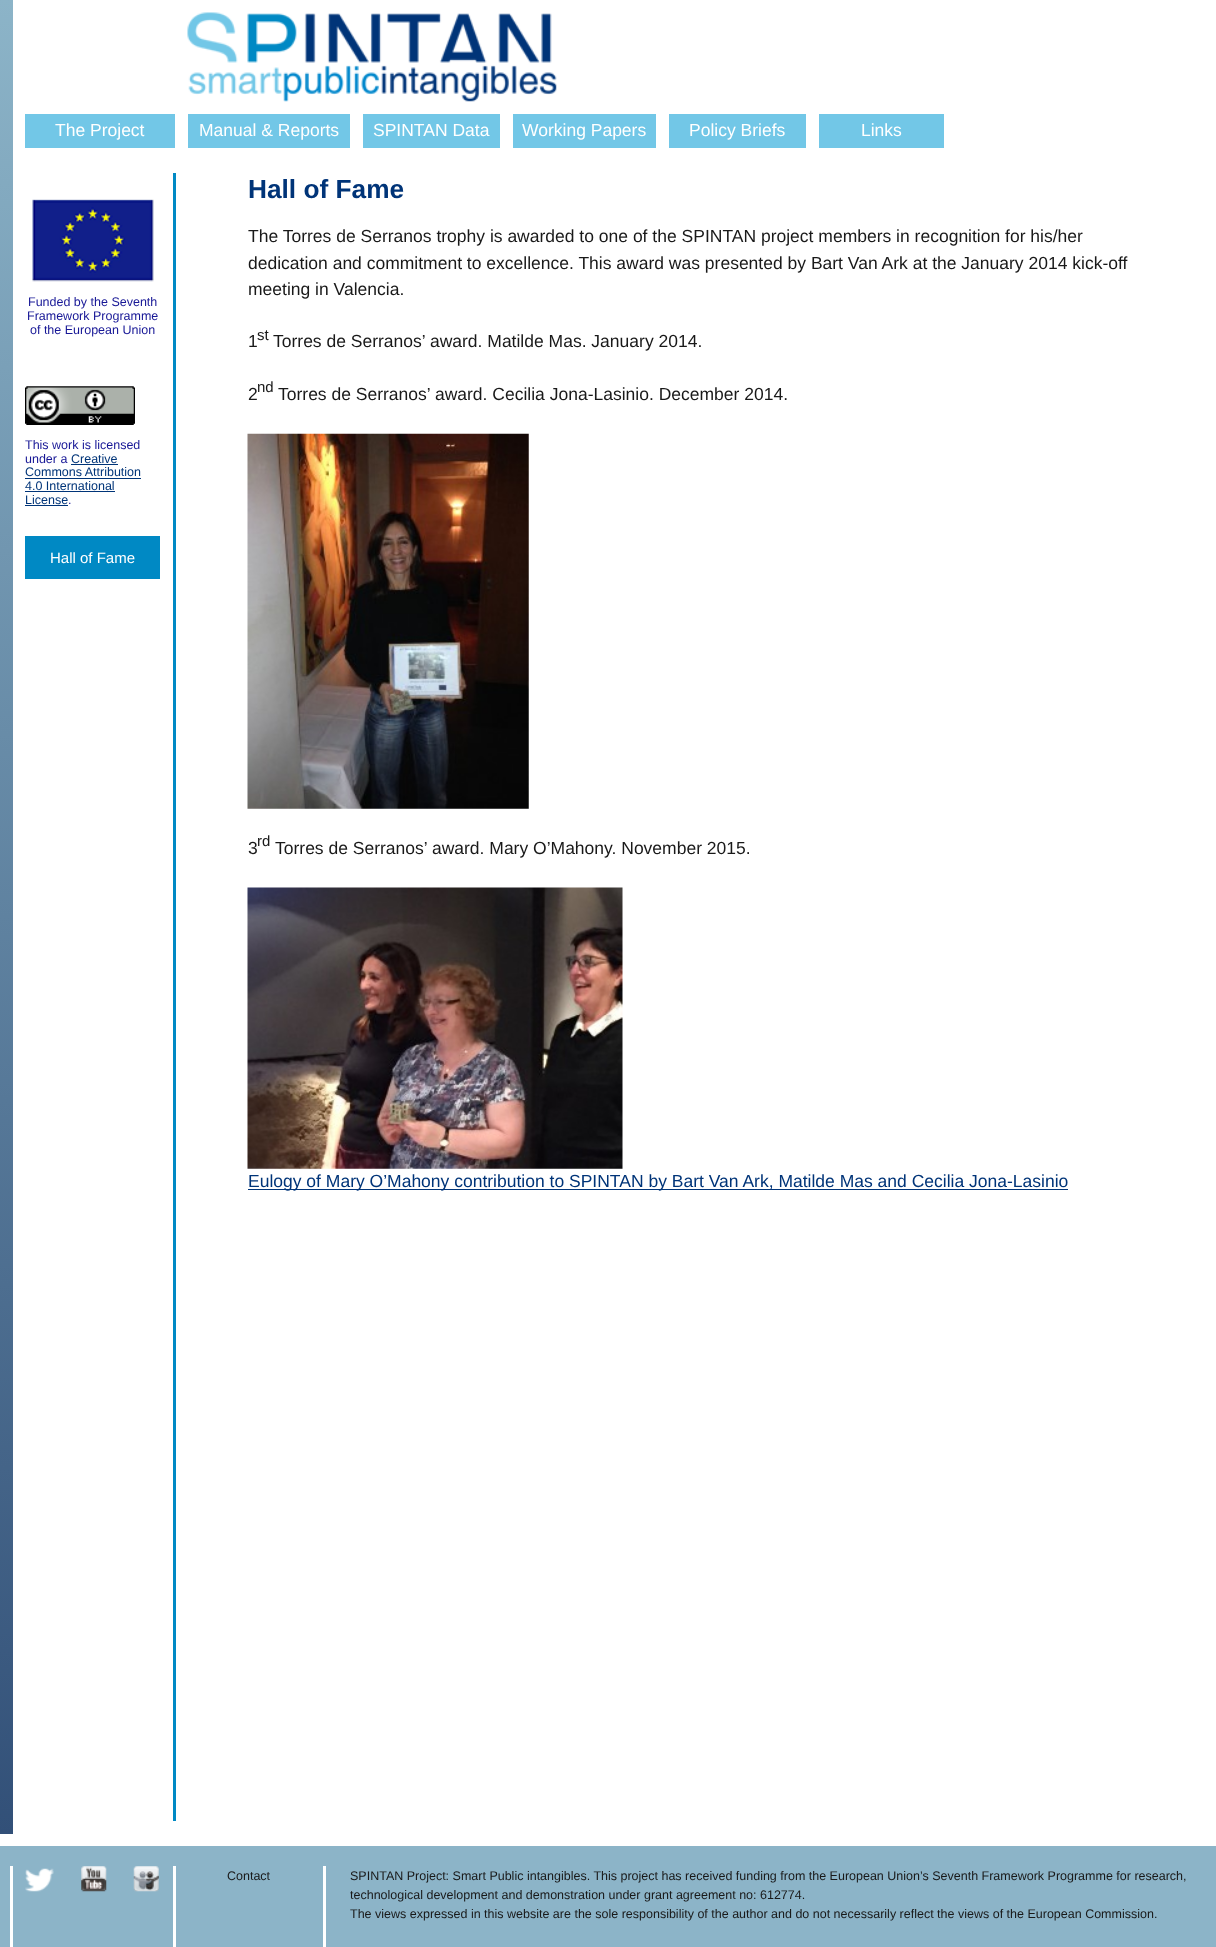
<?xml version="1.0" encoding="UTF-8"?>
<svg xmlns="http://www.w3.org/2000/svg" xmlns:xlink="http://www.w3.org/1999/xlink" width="1216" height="1947">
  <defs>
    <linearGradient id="g1" gradientUnits="userSpaceOnUse" x1="625" y1="0" x2="625" y2="1834"><stop offset="0" stop-color="#8cb4c8" /><stop offset="1" stop-color="#325078" /></linearGradient>
  </defs>
  <rect width="100%" height="100%" fill="#ffffff" />
  <rect width="13" height="1834" fill="url(#g1)" />
  <image x="187" y="12" width="370" height="90" xlink:href="image1.png" />
  <rect x="25" y="114" width="150" height="34" fill="#72c7e7" />
  <rect x="188" y="114" width="162" height="34" fill="#72c7e7" />
  <rect x="363" y="114" width="137" height="34" fill="#72c7e7" />
  <rect x="513" y="114" width="143" height="34" fill="#72c7e7" />
  <rect x="669" y="114" width="137" height="34" fill="#72c7e7" />
  <rect x="819" y="114" width="125" height="34" fill="#72c7e7" />
  <image x="32" y="199" width="122" height="83" xlink:href="image2.png" />
  <image x="25" y="386" width="110" height="39" xlink:href="image3.png" />
  <rect x="71" y="464" width="47" height="1" fill="#003478" />
  <rect x="25" y="478" width="116" height="1" fill="#003478" />
  <rect x="25" y="491" width="90" height="1" fill="#003478" />
  <rect x="25" y="505" width="43" height="1" fill="#003478" />
  <rect x="25" y="536" width="135" height="43" fill="#0089c4" />
  <rect x="173" y="173" width="3" height="1648" fill="#0089c4" />
  <image x="247" y="433" width="282" height="376" xlink:href="image4.png" />
  <image x="247" y="887" width="376" height="282" xlink:href="image5.png" />
  <rect x="248" y="1189" width="820" height="1" fill="#003478" />
  <rect y="1846" width="1216" height="101" fill="#8cb4c8" />
  <rect x="10" y="1866" width="3" height="81" fill="#ffffff" />
  <image x="25" y="1868" width="29" height="24" xlink:href="image6.png" />
  <image x="81" y="1866" width="26" height="26" xlink:href="image7.png" />
  <image x="133" y="1866" width="26" height="26" xlink:href="image8.png" />
  <rect x="323" y="1866" width="3" height="81" fill="#ffffff" />
  <rect x="173" y="1866" width="3" height="81" fill="#ffffff" />
  <text x="55" y="136" style="font-family: Liberation Sans; font-size: 17.5px; fill: #ffffff">The Project</text>
  <text x="199" y="136" style="font-family: Liberation Sans; font-size: 17.5px; fill: #ffffff">Manual &amp; Reports</text>
  <text x="373" y="136" style="font-family: Liberation Sans; font-size: 17.5px; fill: #ffffff">SPINTAN Data</text>
  <text x="522" y="136" style="font-family: Liberation Sans; font-size: 17.5px; fill: #ffffff">Working Papers</text>
  <text x="689" y="136" style="font-family: Liberation Sans; font-size: 17.5px; fill: #ffffff">Policy Briefs</text>
  <text x="861" y="136" style="font-family: Liberation Sans; font-size: 17.5px; fill: #ffffff">Links</text>
  <text x="28" y="306" style="font-family: Liberation Sans; font-size: 12.5px; fill: #171796">Funded by the Seventh</text>
  <text x="27" y="320" style="font-family: Liberation Sans; font-size: 12.5px; fill: #171796">Framework Programme</text>
  <text x="30" y="334" style="font-family: Liberation Sans; font-size: 12.5px; fill: #171796">of the European Union</text>
  <text x="25" y="449" style="font-family: Liberation Sans; font-size: 12.5px; fill: #171796">This work is licensed</text>
  <text x="25" y="463" style="font-family: Liberation Sans; font-size: 12.5px; fill: #171796">under a</text>
  <text x="71" y="463" style="font-family: Liberation Sans; font-size: 12.5px; fill: #003478">Creative</text>
  <text x="25" y="476" style="font-family: Liberation Sans; font-size: 12.5px; fill: #003478">Commons Attribution</text>
  <text x="25" y="490" style="font-family: Liberation Sans; font-size: 12.5px; fill: #003478">4.0 International</text>
  <text x="25" y="504" style="font-family: Liberation Sans; font-size: 12.5px; fill: #003478">License</text>
  <text x="68" y="504" style="font-family: Liberation Sans; font-size: 12.5px; fill: #171796">.</text>
  <text x="50" y="563" style="font-family: Liberation Sans; font-size: 15px; fill: #ffffff">Hall of Fame</text>
  <text x="248" y="198" style="font-family: Liberation Sans; font-size: 26.25px; font-weight: bold; fill: #003478">Hall of Fame</text>
  <text x="248" y="242" style="font-family: Liberation Sans; font-size: 17.5px; fill: #191919">The Torres de Serranos trophy is awarded to one of the SPINTAN project members in recognition for his/her</text>
  <text x="248" y="269" style="font-family: Liberation Sans; font-size: 17.5px; fill: #191919">dedication and commitment to excellence. This award was presented by Bart Van Ark at the January 2014 kick-off</text>
  <text x="248" y="295" style="font-family: Liberation Sans; font-size: 17.5px; fill: #191919">meeting in Valencia.</text>
  <text x="248" y="347" style="font-family: Liberation Sans; font-size: 17.5px; fill: #191919">1</text>
  <text x="257" y="340" style="font-family: Liberation Sans; font-size: 15px; fill: #191919">st</text>
  <text x="273" y="347" style="font-family: Liberation Sans; font-size: 17.5px; fill: #191919">Torres de Serranos’ award. Matilde Mas. January 2014.</text>
  <text x="248" y="400" style="font-family: Liberation Sans; font-size: 17.5px; fill: #191919">2</text>
  <text x="257" y="392" style="font-family: Liberation Sans; font-size: 15px; fill: #191919">nd</text>
  <text x="278" y="400" style="font-family: Liberation Sans; font-size: 17.5px; fill: #191919">Torres de Serranos’ award. Cecilia Jona-Lasinio. December 2014.</text>
  <text x="248" y="854" style="font-family: Liberation Sans; font-size: 17.5px; fill: #191919">3</text>
  <text x="257" y="846" style="font-family: Liberation Sans; font-size: 15px; fill: #191919">rd</text>
  <text x="275" y="854" style="font-family: Liberation Sans; font-size: 17.5px; fill: #191919">Torres de Serranos’ award. Mary O’Mahony. November 2015.</text>
  <text x="248" y="1187" style="font-family: Liberation Sans; font-size: 17.5px; fill: #003478">Eulogy of Mary O’Mahony contribution to SPINTAN by Bart Van Ark, Matilde Mas and Cecilia Jona-Lasinio</text>
  <text x="227" y="1880" style="font-family: Liberation Sans; font-size: 12.5px; fill: #191919">Contact</text>
  <text x="350" y="1880" style="font-family: Liberation Sans; font-size: 12.5px; fill: #191919">SPINTAN Project: Smart Public intangibles. This project has received funding from the European Union’s Seventh Framework Programme for research,</text>
  <text x="350" y="1899" style="font-family: Liberation Sans; font-size: 12.5px; fill: #191919">technological development and demonstration under grant agreement no: 612774.</text>
  <text x="350" y="1918" style="font-family: Liberation Sans; font-size: 12.5px; fill: #191919">The views expressed in this website are the sole responsibility of the author and do not necessarily reflect the views of the European Commission.</text>
</svg>
